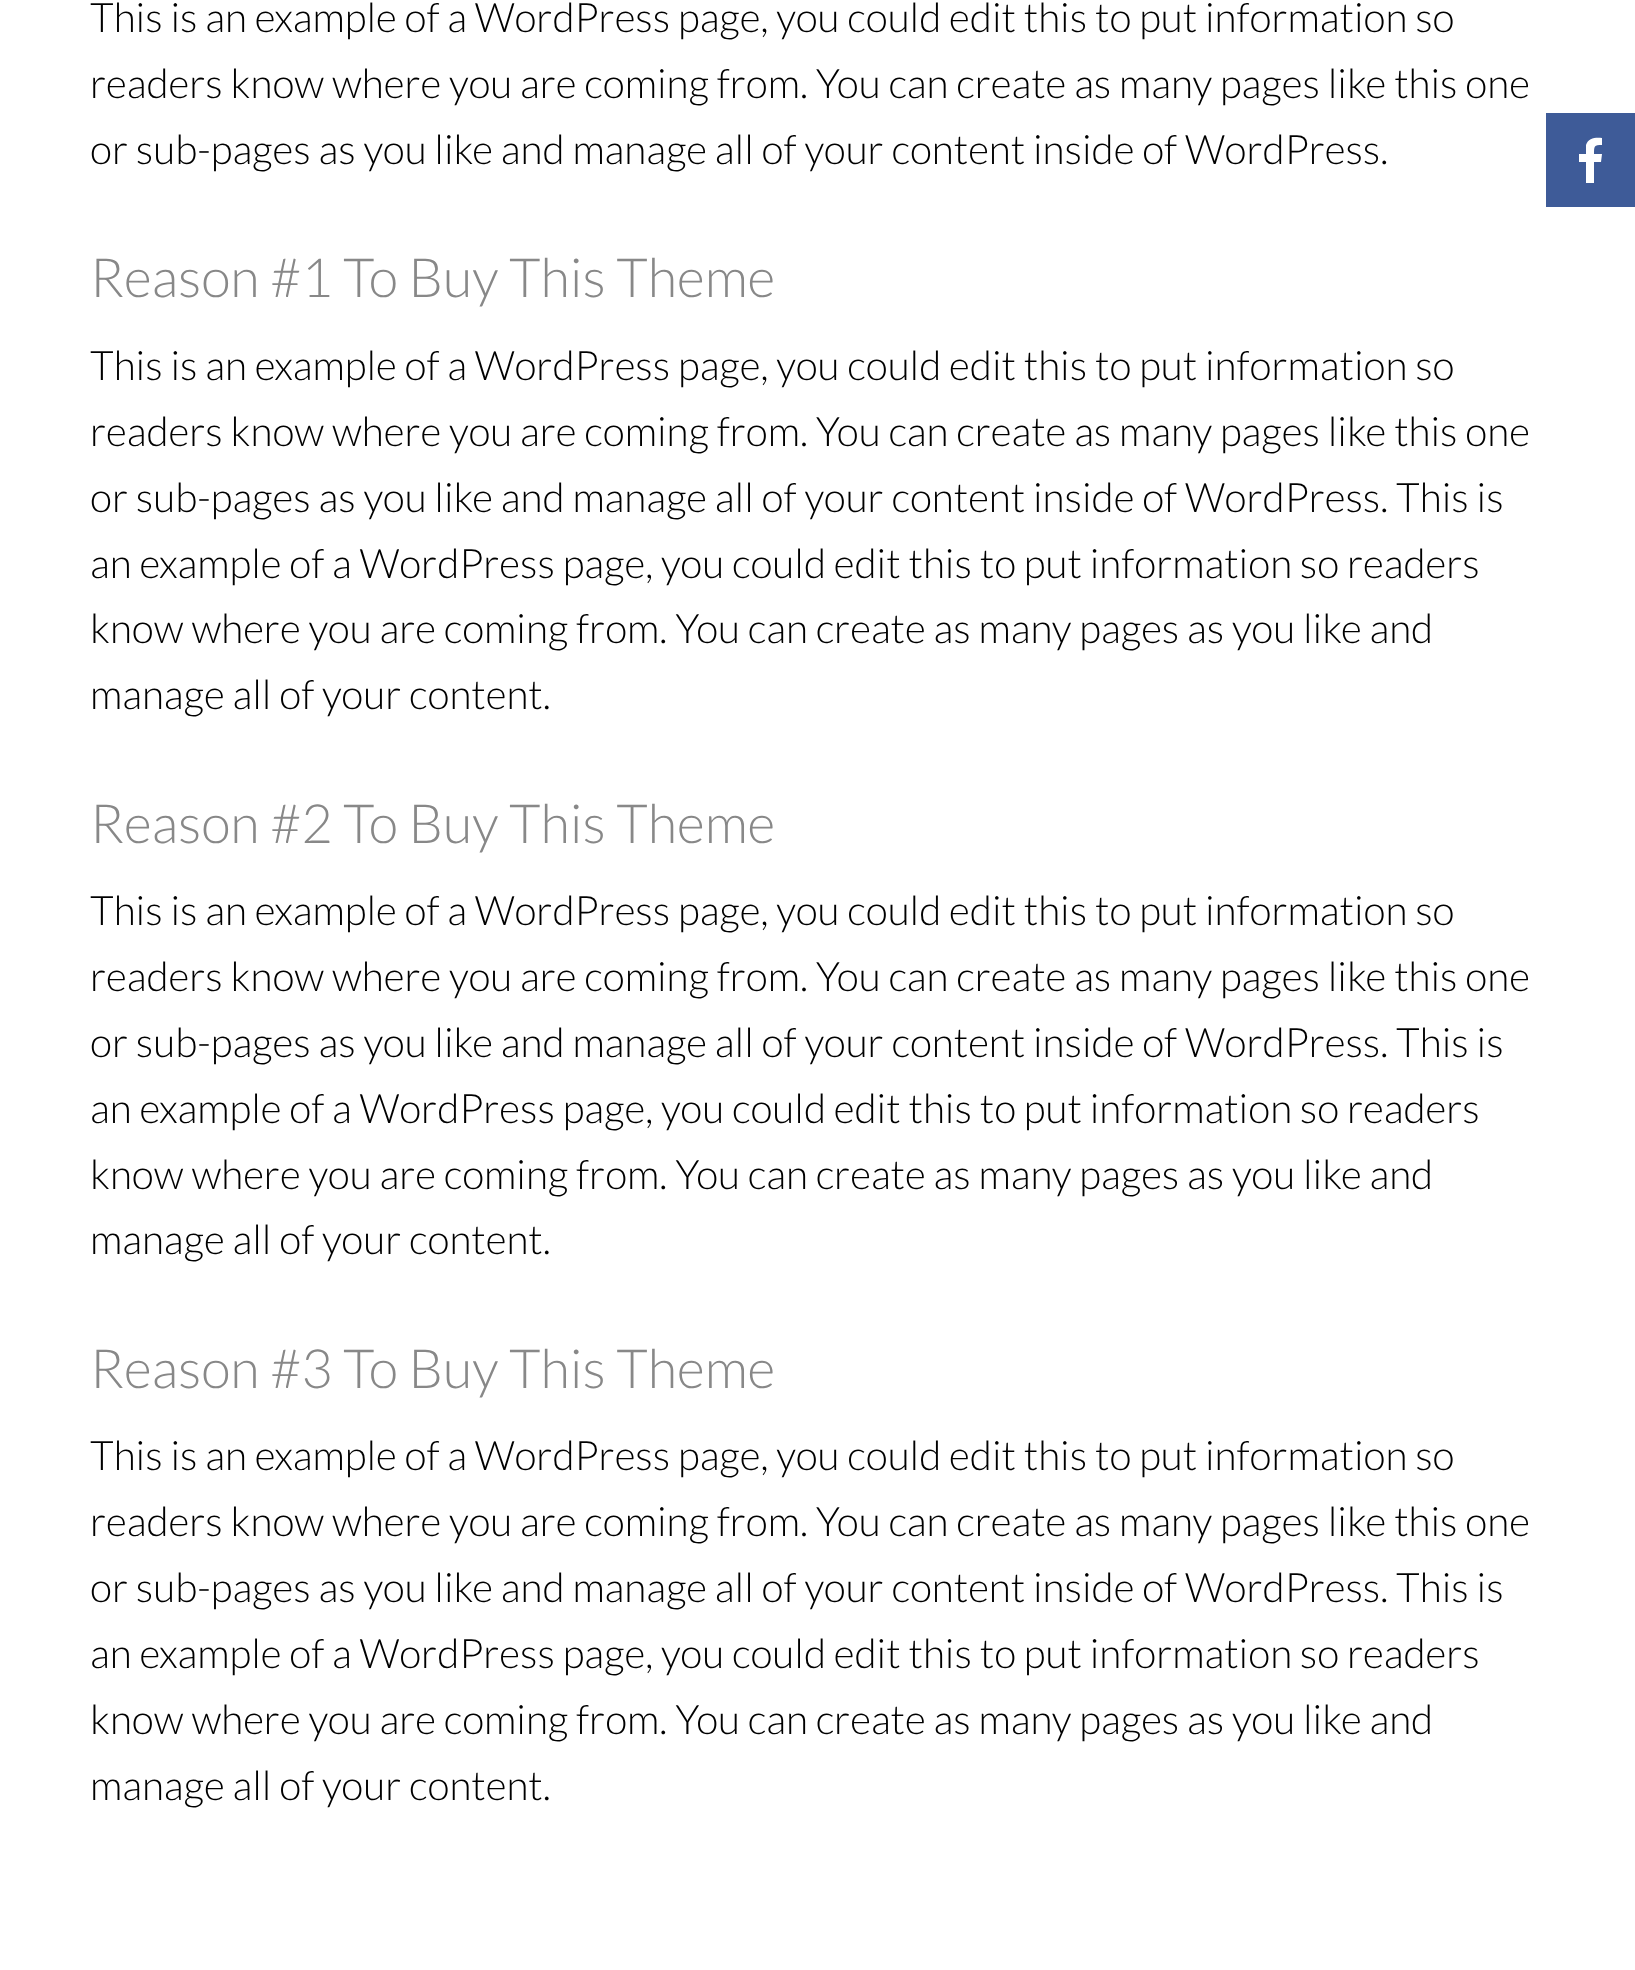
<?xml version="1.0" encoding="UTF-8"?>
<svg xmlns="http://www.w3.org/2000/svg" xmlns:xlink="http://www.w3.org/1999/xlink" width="1635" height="1970">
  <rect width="100%" height="100%" fill="#ffffff" />
  <rect x="1546" y="113" width="89" height="94" fill="#3e5b98" />
  <path d="M 1594 183 v -21 h 7 l 1 -8 h -8 c 0 -8 0 -9 8 -9 v -7 c -6 -1 -14 0 -16 7 v 9 h -7 v 8 h 7 v 21 z" fill="#ffffff" />
  <text x="90" y="32" style="font-family: Lato; font-size: 40.5px; font-weight: 300; fill: #000000">This is an example of a WordPress page, you could edit this to put information so</text>
  <text x="90" y="98" style="font-family: Lato; font-size: 40.5px; font-weight: 300; fill: #000000">readers know where you are coming from. You can create as many pages like this one</text>
  <text x="90" y="164" style="font-family: Lato; font-size: 40.5px; font-weight: 300; fill: #000000">or sub-pages as you like and manage all of your content inside of WordPress.</text>
  <text x="90" y="297" style="font-family: Lato; font-size: 54px; font-weight: 300; fill: #888888">Reason #1 To Buy This Theme</text>
  <text x="90" y="380" style="font-family: Lato; font-size: 40.5px; font-weight: 300; fill: #000000">This is an example of a WordPress page, you could edit this to put information so</text>
  <text x="90" y="446" style="font-family: Lato; font-size: 40.5px; font-weight: 300; fill: #000000">readers know where you are coming from. You can create as many pages like this one</text>
  <text x="90" y="512" style="font-family: Lato; font-size: 40.5px; font-weight: 300; fill: #000000">or sub-pages as you like and manage all of your content inside of WordPress. This is</text>
  <text x="90" y="578" style="font-family: Lato; font-size: 40.5px; font-weight: 300; fill: #000000">an example of a WordPress page, you could edit this to put information so readers</text>
  <text x="90" y="643" style="font-family: Lato; font-size: 40.5px; font-weight: 300; fill: #000000">know where you are coming from. You can create as many pages as you like and</text>
  <text x="90" y="709" style="font-family: Lato; font-size: 40.5px; font-weight: 300; fill: #000000">manage all of your content.</text>
  <text x="90" y="843" style="font-family: Lato; font-size: 54px; font-weight: 300; fill: #888888">Reason #2 To Buy This Theme</text>
  <text x="90" y="925" style="font-family: Lato; font-size: 40.5px; font-weight: 300; fill: #000000">This is an example of a WordPress page, you could edit this to put information so</text>
  <text x="90" y="991" style="font-family: Lato; font-size: 40.5px; font-weight: 300; fill: #000000">readers know where you are coming from. You can create as many pages like this one</text>
  <text x="90" y="1057" style="font-family: Lato; font-size: 40.5px; font-weight: 300; fill: #000000">or sub-pages as you like and manage all of your content inside of WordPress. This is</text>
  <text x="90" y="1123" style="font-family: Lato; font-size: 40.5px; font-weight: 300; fill: #000000">an example of a WordPress page, you could edit this to put information so readers</text>
  <text x="90" y="1189" style="font-family: Lato; font-size: 40.5px; font-weight: 300; fill: #000000">know where you are coming from. You can create as many pages as you like and</text>
  <text x="90" y="1254" style="font-family: Lato; font-size: 40.5px; font-weight: 300; fill: #000000">manage all of your content.</text>
  <text x="90" y="1388" style="font-family: Lato; font-size: 54px; font-weight: 300; fill: #888888">Reason #3 To Buy This Theme</text>
  <text x="90" y="1470" style="font-family: Lato; font-size: 40.5px; font-weight: 300; fill: #000000">This is an example of a WordPress page, you could edit this to put information so</text>
  <text x="90" y="1536" style="font-family: Lato; font-size: 40.5px; font-weight: 300; fill: #000000">readers know where you are coming from. You can create as many pages like this one</text>
  <text x="90" y="1602" style="font-family: Lato; font-size: 40.5px; font-weight: 300; fill: #000000">or sub-pages as you like and manage all of your content inside of WordPress. This is</text>
  <text x="90" y="1668" style="font-family: Lato; font-size: 40.5px; font-weight: 300; fill: #000000">an example of a WordPress page, you could edit this to put information so readers</text>
  <text x="90" y="1734" style="font-family: Lato; font-size: 40.5px; font-weight: 300; fill: #000000">know where you are coming from. You can create as many pages as you like and</text>
  <text x="90" y="1800" style="font-family: Lato; font-size: 40.5px; font-weight: 300; fill: #000000">manage all of your content.</text>
</svg>
